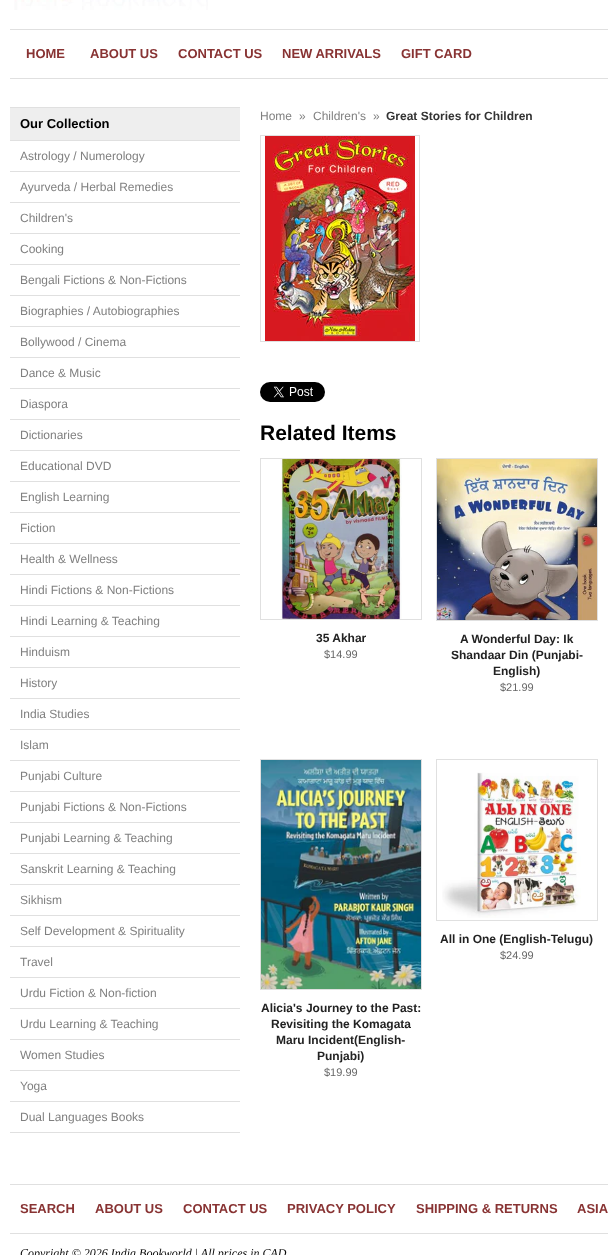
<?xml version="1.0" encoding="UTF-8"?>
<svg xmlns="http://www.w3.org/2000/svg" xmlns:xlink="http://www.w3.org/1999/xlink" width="608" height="1255">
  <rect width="100%" height="100%" fill="#ffffff" />
  <image x="14" y="0" width="194" height="10" xlink:href="image1.png" />
  <rect x="10" y="29" width="598" height="1" fill="#e0e0e0" />
  <rect x="10" y="78" width="598" height="1" fill="#e0e0e0" />
  <rect x="10" y="108" width="230" height="32" fill="#eeeeee" />
  <rect x="10" y="107" width="230" height="1" fill="#e0e0e0" />
  <rect x="10" y="140" width="230" height="1" fill="#e0e0e0" />
  <rect x="10" y="171" width="230" height="1" fill="#e0e0e0" />
  <rect x="10" y="202" width="230" height="1" fill="#e0e0e0" />
  <rect x="10" y="233" width="230" height="1" fill="#e0e0e0" />
  <rect x="10" y="264" width="230" height="1" fill="#e0e0e0" />
  <rect x="10" y="295" width="230" height="1" fill="#e0e0e0" />
  <rect x="10" y="326" width="230" height="1" fill="#e0e0e0" />
  <rect x="10" y="357" width="230" height="1" fill="#e0e0e0" />
  <rect x="10" y="388" width="230" height="1" fill="#e0e0e0" />
  <rect x="10" y="419" width="230" height="1" fill="#e0e0e0" />
  <rect x="10" y="450" width="230" height="1" fill="#e0e0e0" />
  <rect x="10" y="481" width="230" height="1" fill="#e0e0e0" />
  <rect x="10" y="512" width="230" height="1" fill="#e0e0e0" />
  <rect x="10" y="543" width="230" height="1" fill="#e0e0e0" />
  <rect x="10" y="574" width="230" height="1" fill="#e0e0e0" />
  <rect x="10" y="605" width="230" height="1" fill="#e0e0e0" />
  <rect x="10" y="636" width="230" height="1" fill="#e0e0e0" />
  <rect x="10" y="667" width="230" height="1" fill="#e0e0e0" />
  <rect x="10" y="698" width="230" height="1" fill="#e0e0e0" />
  <rect x="10" y="729" width="230" height="1" fill="#e0e0e0" />
  <rect x="10" y="760" width="230" height="1" fill="#e0e0e0" />
  <rect x="10" y="791" width="230" height="1" fill="#e0e0e0" />
  <rect x="10" y="822" width="230" height="1" fill="#e0e0e0" />
  <rect x="10" y="853" width="230" height="1" fill="#e0e0e0" />
  <rect x="10" y="884" width="230" height="1" fill="#e0e0e0" />
  <rect x="10" y="915" width="230" height="1" fill="#e0e0e0" />
  <rect x="10" y="946" width="230" height="1" fill="#e0e0e0" />
  <rect x="10" y="977" width="230" height="1" fill="#e0e0e0" />
  <rect x="10" y="1008" width="230" height="1" fill="#e0e0e0" />
  <rect x="10" y="1039" width="230" height="1" fill="#e0e0e0" />
  <rect x="10" y="1070" width="230" height="1" fill="#e0e0e0" />
  <rect x="10" y="1101" width="230" height="1" fill="#e0e0e0" />
  <rect x="10" y="1132" width="230" height="1" fill="#e0e0e0" />
  <rect x="260.5" y="135.5" width="159" height="206" fill="none" stroke="#e0e0e0" />
  <image x="265" y="136" width="150" height="205" xlink:href="image2.png" />
  <image x="260" y="382" width="65" height="20" xlink:href="image3.png" />
  <rect x="260.5" y="458.5" width="161" height="161" fill="none" stroke="#e0e0e0" />
  <image x="280" y="459" width="122" height="160" xlink:href="image4.png" />
  <rect x="436.5" y="458.5" width="161" height="162" fill="none" stroke="#e0e0e0" />
  <image x="437" y="459" width="160" height="161" xlink:href="image5.png" />
  <rect x="436.5" y="759.5" width="161" height="161" fill="none" stroke="#e0e0e0" />
  <image x="442" y="772" width="139" height="146" xlink:href="image6.png" />
  <rect x="260.5" y="759.5" width="161" height="230" fill="none" stroke="#e0e0e0" />
  <image x="261" y="760" width="160" height="229" xlink:href="image7.png" />
  <rect x="10" y="1184" width="598" height="1" fill="#e0e0e0" />
  <rect x="10" y="1233" width="598" height="1" fill="#e0e0e0" />
  <text x="26" y="58" style="font-family: Liberation Sans; font-size: 13px; font-weight: bold; fill: #883333">HOME</text>
  <text x="90" y="58" style="font-family: Liberation Sans; font-size: 13px; font-weight: bold; fill: #883333">ABOUT US</text>
  <text x="178" y="58" style="font-family: Liberation Sans; font-size: 13px; font-weight: bold; fill: #883333">CONTACT US</text>
  <text x="282" y="58" style="font-family: Liberation Sans; font-size: 13px; font-weight: bold; fill: #883333">NEW ARRIVALS</text>
  <text x="401" y="58" style="font-family: Liberation Sans; font-size: 13px; font-weight: bold; fill: #883333">GIFT CARD</text>
  <text x="20" y="128" style="font-family: Liberation Sans; font-size: 13px; font-weight: bold; fill: #000000">Our Collection</text>
  <text x="20" y="160" style="font-family: Liberation Sans; font-size: 12px; fill: #808080">Astrology / Numerology</text>
  <text x="20" y="191" style="font-family: Liberation Sans; font-size: 12px; fill: #808080">Ayurveda / Herbal Remedies</text>
  <text x="20" y="222" style="font-family: Liberation Sans; font-size: 12px; fill: #808080">Children's</text>
  <text x="20" y="253" style="font-family: Liberation Sans; font-size: 12px; fill: #808080">Cooking</text>
  <text x="20" y="284" style="font-family: Liberation Sans; font-size: 12px; fill: #808080">Bengali Fictions &amp; Non-Fictions</text>
  <text x="20" y="315" style="font-family: Liberation Sans; font-size: 12px; fill: #808080">Biographies / Autobiographies</text>
  <text x="20" y="346" style="font-family: Liberation Sans; font-size: 12px; fill: #808080">Bollywood / Cinema</text>
  <text x="20" y="377" style="font-family: Liberation Sans; font-size: 12px; fill: #808080">Dance &amp; Music</text>
  <text x="20" y="408" style="font-family: Liberation Sans; font-size: 12px; fill: #808080">Diaspora</text>
  <text x="20" y="439" style="font-family: Liberation Sans; font-size: 12px; fill: #808080">Dictionaries</text>
  <text x="20" y="470" style="font-family: Liberation Sans; font-size: 12px; fill: #808080">Educational DVD</text>
  <text x="20" y="501" style="font-family: Liberation Sans; font-size: 12px; fill: #808080">English Learning</text>
  <text x="20" y="532" style="font-family: Liberation Sans; font-size: 12px; fill: #808080">Fiction</text>
  <text x="20" y="563" style="font-family: Liberation Sans; font-size: 12px; fill: #808080">Health &amp; Wellness</text>
  <text x="20" y="594" style="font-family: Liberation Sans; font-size: 12px; fill: #808080">Hindi Fictions &amp; Non-Fictions</text>
  <text x="20" y="625" style="font-family: Liberation Sans; font-size: 12px; fill: #808080">Hindi Learning &amp; Teaching</text>
  <text x="20" y="656" style="font-family: Liberation Sans; font-size: 12px; fill: #808080">Hinduism</text>
  <text x="20" y="687" style="font-family: Liberation Sans; font-size: 12px; fill: #808080">History</text>
  <text x="20" y="718" style="font-family: Liberation Sans; font-size: 12px; fill: #808080">India Studies</text>
  <text x="20" y="749" style="font-family: Liberation Sans; font-size: 12px; fill: #808080">Islam</text>
  <text x="20" y="780" style="font-family: Liberation Sans; font-size: 12px; fill: #808080">Punjabi Culture</text>
  <text x="20" y="811" style="font-family: Liberation Sans; font-size: 12px; fill: #808080">Punjabi Fictions &amp; Non-Fictions</text>
  <text x="20" y="842" style="font-family: Liberation Sans; font-size: 12px; fill: #808080">Punjabi Learning &amp; Teaching</text>
  <text x="20" y="873" style="font-family: Liberation Sans; font-size: 12px; fill: #808080">Sanskrit Learning &amp; Teaching</text>
  <text x="20" y="904" style="font-family: Liberation Sans; font-size: 12px; fill: #808080">Sikhism</text>
  <text x="20" y="935" style="font-family: Liberation Sans; font-size: 12px; fill: #808080">Self Development &amp; Spirituality</text>
  <text x="20" y="966" style="font-family: Liberation Sans; font-size: 12px; fill: #808080">Travel</text>
  <text x="20" y="997" style="font-family: Liberation Sans; font-size: 12px; fill: #808080">Urdu Fiction &amp; Non-fiction</text>
  <text x="20" y="1028" style="font-family: Liberation Sans; font-size: 12px; fill: #808080">Urdu Learning &amp; Teaching</text>
  <text x="20" y="1059" style="font-family: Liberation Sans; font-size: 12px; fill: #808080">Women Studies</text>
  <text x="20" y="1090" style="font-family: Liberation Sans; font-size: 12px; fill: #808080">Yoga</text>
  <text x="20" y="1121" style="font-family: Liberation Sans; font-size: 12px; fill: #808080">Dual Languages Books</text>
  <text x="260" y="120" style="font-family: Liberation Sans; font-size: 12px; fill: #808080">Home</text>
  <text x="299" y="120" style="font-family: Liberation Sans; font-size: 12px; fill: #808080">»</text>
  <text x="313" y="120" style="font-family: Liberation Sans; font-size: 12px; fill: #808080">Children's</text>
  <text x="373" y="120" style="font-family: Liberation Sans; font-size: 12px; fill: #808080">»</text>
  <text x="386" y="120" style="font-family: Liberation Sans; font-size: 12px; font-weight: bold; fill: #333333">Great Stories for Children</text>
  <text x="260" y="440" style="font-family: Liberation Sans; font-size: 21px; font-weight: bold; fill: #000000">Related Items</text>
  <text x="316" y="642" style="font-family: Liberation Sans; font-size: 12px; font-weight: bold; fill: #222222">35 Akhar</text>
  <text x="324" y="658" style="font-family: Liberation Sans; font-size: 11px; fill: #666666">$14.99</text>
  <text x="460" y="643" style="font-family: Liberation Sans; font-size: 12px; font-weight: bold; fill: #222222">A Wonderful Day: Ik</text>
  <text x="451" y="659" style="font-family: Liberation Sans; font-size: 12px; font-weight: bold; fill: #222222">Shandaar Din (Punjabi-</text>
  <text x="493" y="675" style="font-family: Liberation Sans; font-size: 12px; font-weight: bold; fill: #222222">English)</text>
  <text x="500" y="691" style="font-family: Liberation Sans; font-size: 11px; fill: #666666">$21.99</text>
  <text x="440" y="943" style="font-family: Liberation Sans; font-size: 12px; font-weight: bold; fill: #222222">All in One (English-Telugu)</text>
  <text x="500" y="959" style="font-family: Liberation Sans; font-size: 11px; fill: #666666">$24.99</text>
  <text x="261" y="1012" style="font-family: Liberation Sans; font-size: 12px; font-weight: bold; fill: #222222">Alicia's Journey to the Past:</text>
  <text x="271" y="1028" style="font-family: Liberation Sans; font-size: 12px; font-weight: bold; fill: #222222">Revisiting the Komagata</text>
  <text x="276" y="1044" style="font-family: Liberation Sans; font-size: 12px; font-weight: bold; fill: #222222">Maru Incident(English-</text>
  <text x="317" y="1060" style="font-family: Liberation Sans; font-size: 12px; font-weight: bold; fill: #222222">Punjabi)</text>
  <text x="324" y="1076" style="font-family: Liberation Sans; font-size: 11px; fill: #666666">$19.99</text>
  <text x="20" y="1213" style="font-family: Liberation Sans; font-size: 13px; font-weight: bold; fill: #883333">SEARCH</text>
  <text x="95" y="1213" style="font-family: Liberation Sans; font-size: 13px; font-weight: bold; fill: #883333">ABOUT US</text>
  <text x="183" y="1213" style="font-family: Liberation Sans; font-size: 13px; font-weight: bold; fill: #883333">CONTACT US</text>
  <text x="287" y="1213" style="font-family: Liberation Sans; font-size: 13px; font-weight: bold; fill: #883333">PRIVACY POLICY</text>
  <text x="416" y="1213" style="font-family: Liberation Sans; font-size: 13px; font-weight: bold; fill: #883333">SHIPPING &amp; RETURNS</text>
  <text x="577" y="1213" style="font-family: Liberation Sans; font-size: 13px; font-weight: bold; fill: #883333">ASIA</text>
  <text x="20" y="1257" style="font-family: Liberation Serif; font-size: 12px; font-style: italic; fill: #0a0a0a">Copyright © 2026 India Bookworld | All prices in CAD</text>
</svg>
